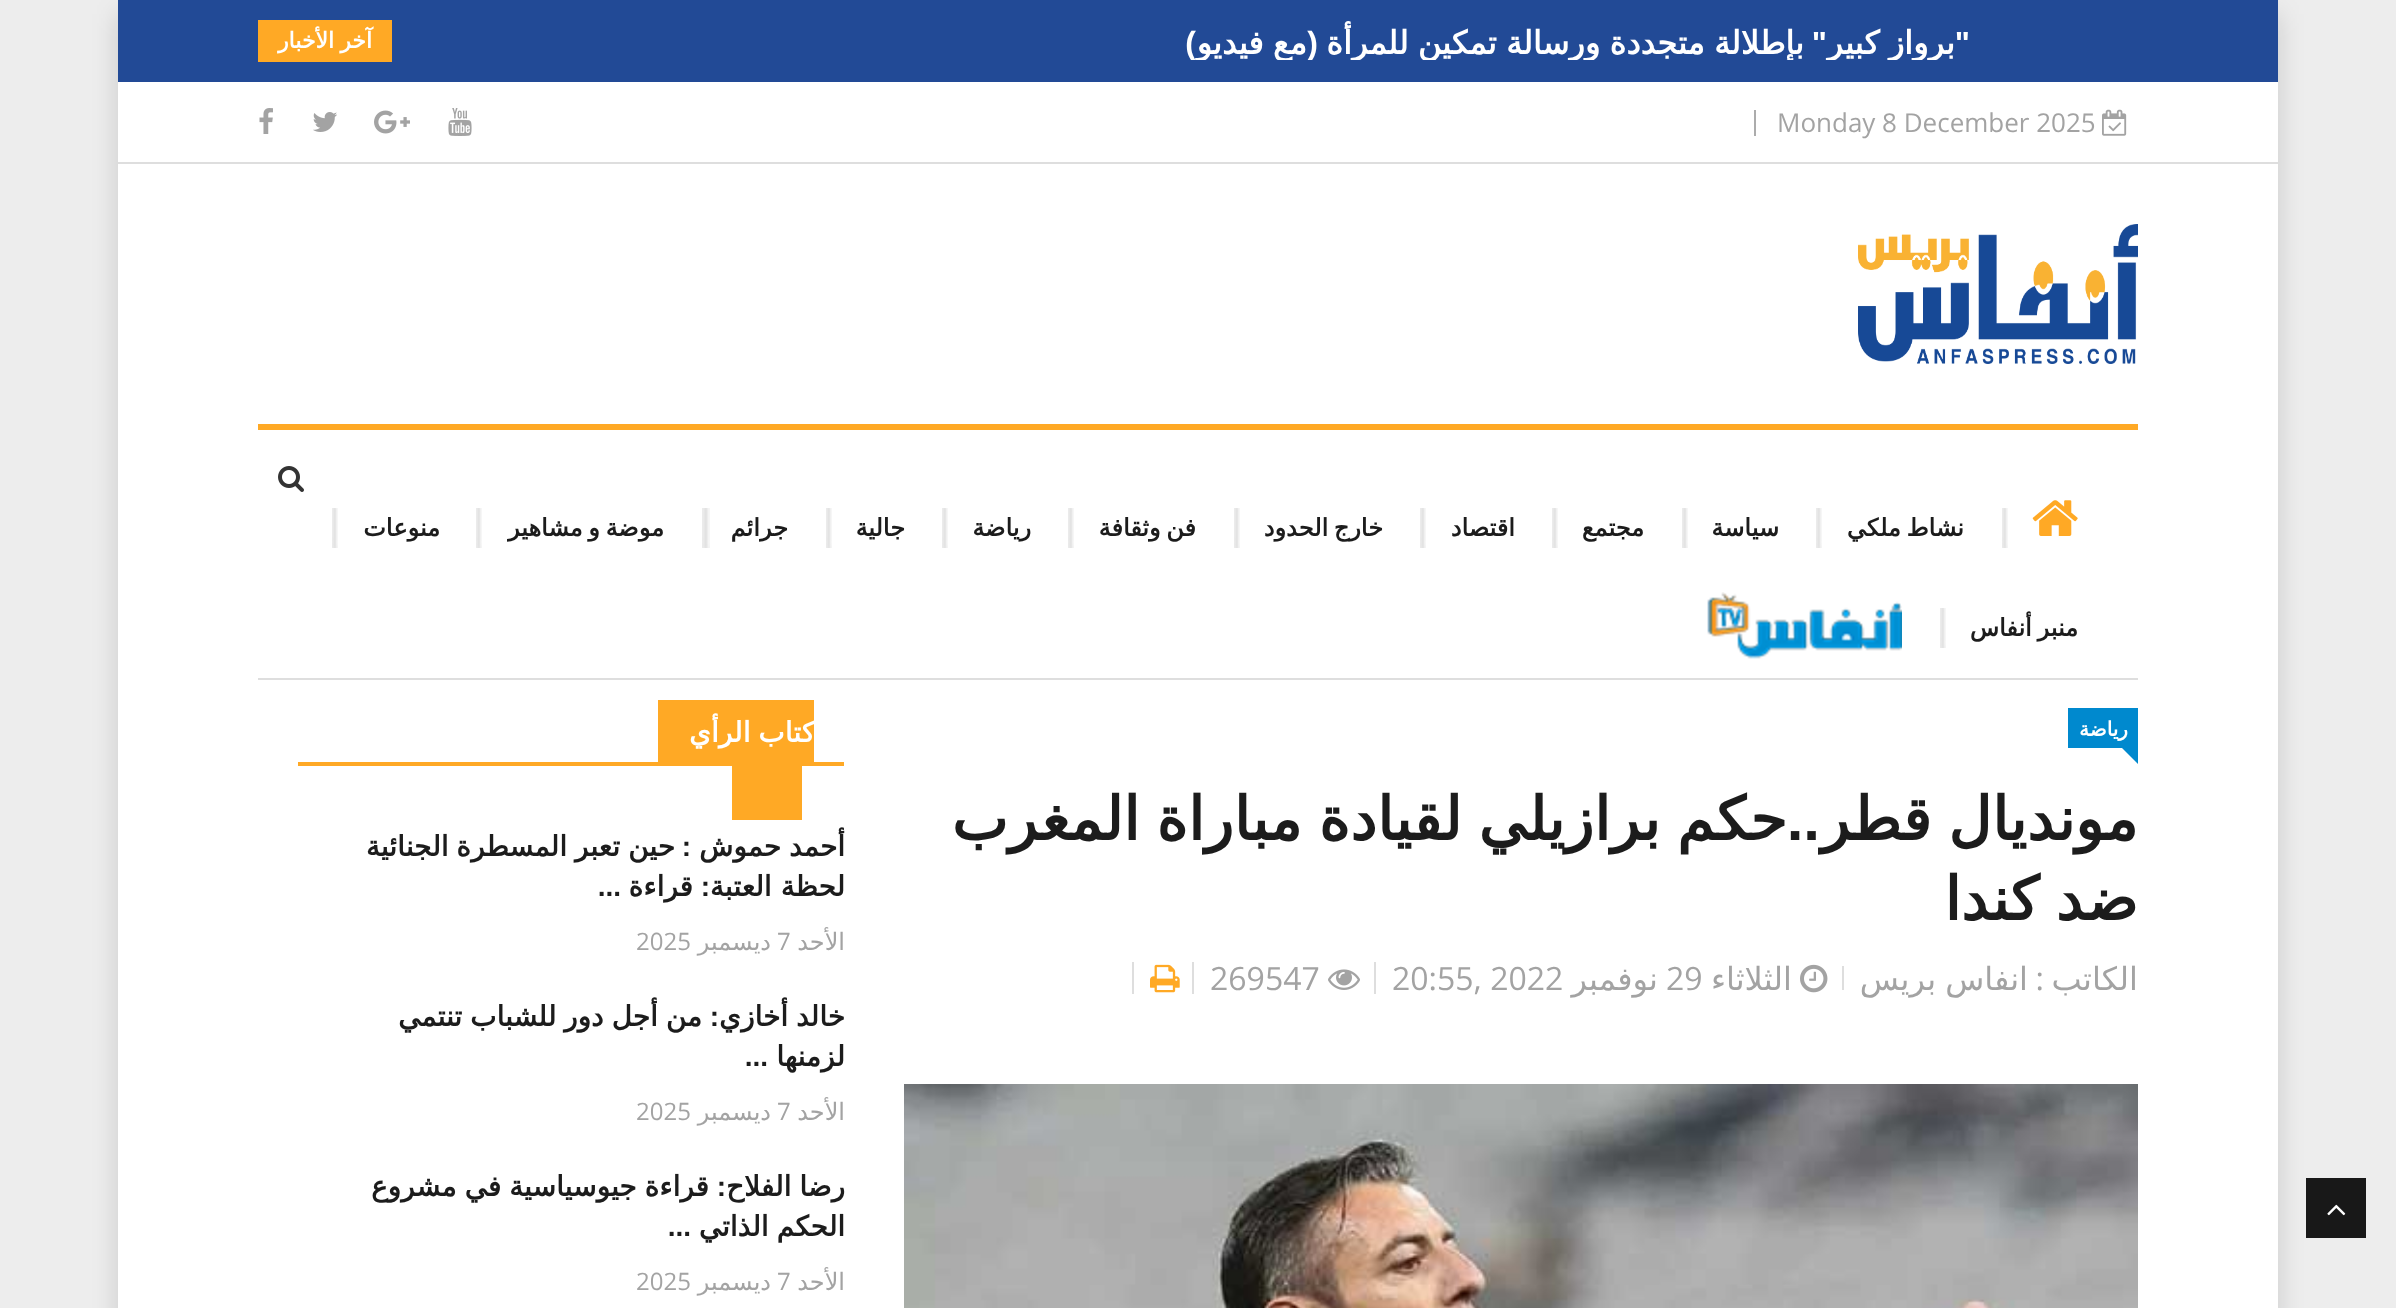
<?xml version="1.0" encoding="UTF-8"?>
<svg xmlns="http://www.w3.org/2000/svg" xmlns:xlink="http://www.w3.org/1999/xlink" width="2396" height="1308">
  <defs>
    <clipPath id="clip1"><rect x="420" y="20" width="1702" height="40" /></clipPath>
  </defs>
  <rect width="100%" height="100%" fill="#ffffff" />
  <image x="0" y="0" width="2396" height="1308" xlink:href="image1.png" />
  <rect x="118" y="14" width="2160" height="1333" fill="#000000" fill-opacity="0.15" filter="blur(13px)" />
  <rect x="118" y="82" width="2160" height="1226" fill="#ffffff" />
  <rect x="118" width="2160" height="82" fill="#224a96" />
  <rect x="258" y="20" width="134" height="42" fill="#ffa925" />
  <rect x="118" y="162" width="2160" height="2" fill="#dedede" />
  <rect x="1754" y="110" width="2" height="26" fill="#acacac" />
  <image x="2102" y="109" width="25" height="27" xlink:href="image2.png" />
  <image x="448" y="108" width="24" height="28" xlink:href="image3.png" />
  <image x="374" y="110" width="36" height="24" xlink:href="image4.png" />
  <image x="313" y="112" width="24" height="20" xlink:href="image5.png" />
  <image x="259" y="108" width="14" height="26" xlink:href="image6.png" />
  <image x="1858" y="224" width="280" height="140" xlink:href="image7.png" />
  <rect x="258" y="424" width="1880" height="6" fill="#ffa925" />
  <rect x="258" y="678" width="1880" height="2" fill="#dedede" />
  <image x="278" y="466" width="26" height="26" xlink:href="image8.png" />
  <image x="2002" y="508" width="6" height="40" xlink:href="image9.png" />
  <image x="2032" y="500" width="46" height="36" xlink:href="image10.png" />
  <image x="1816" y="508" width="6" height="40" xlink:href="image9.png" />
  <image x="1682" y="508" width="6" height="40" xlink:href="image9.png" />
  <image x="1552" y="508" width="6" height="40" xlink:href="image9.png" />
  <image x="1420" y="508" width="6" height="40" xlink:href="image9.png" />
  <image x="1234" y="508" width="6" height="40" xlink:href="image9.png" />
  <image x="1068" y="508" width="6" height="40" xlink:href="image9.png" />
  <image x="942" y="508" width="6" height="40" xlink:href="image9.png" />
  <image x="826" y="508" width="6" height="40" xlink:href="image9.png" />
  <image x="702" y="508" width="8" height="40" xlink:href="image11.png" />
  <image x="476" y="508" width="6" height="40" xlink:href="image9.png" />
  <image x="332" y="508" width="6" height="40" xlink:href="image9.png" />
  <image x="1940" y="608" width="6" height="40" xlink:href="image9.png" />
  <image x="1707" y="592" width="195" height="67" xlink:href="image12.png" />
  <rect x="2306" y="1178" width="60" height="60" fill="#181818" />
  <image x="2327" y="1204" width="19" height="12" xlink:href="image13.png" />
  <rect x="2068" y="708" width="70" height="40" fill="#0089ce" />
  <path d="M 2122 748 h 16 v 16 z" fill="#0089ce" />
  <rect x="1842" y="966" width="2" height="24" fill="#dedede" />
  <rect x="1374" y="962" width="2" height="32" fill="#dedede" />
  <image x="1800" y="964" width="28" height="29" xlink:href="image14.png" />
  <rect x="1192" y="962" width="2" height="32" fill="#dedede" />
  <image x="1328" y="969" width="32" height="21" xlink:href="image15.png" />
  <rect x="1132" y="962" width="2" height="32" fill="#dedede" />
  <image x="1150" y="964" width="30" height="29" xlink:href="image16.png" />
  <image x="904" y="1084" width="1234" height="224" xlink:href="image17.png" />
  <rect x="298" y="762" width="546" height="4" fill="#ffa925" />
  <rect x="658" y="700" width="156" height="62" fill="#ffa925" />
  <rect x="732" y="766" width="70" height="54" fill="#ffa925" />
  <text x="1970" y="54" style="font-family: Arimo; font-size: 32px; font-weight: bold; direction: rtl; fill: #ffffff">"</text>
  <g clip-path="url(#clip1)">
    <text x="1955" y="54" word-spacing="-1" style="font-family: DejaVu Sans; font-size: 32px; font-weight: bold; direction: rtl; fill: #ffffff">برواز كبير</text>
  </g>
  <text x="1827" y="54" style="font-family: Arimo; font-size: 32px; font-weight: bold; direction: rtl; fill: #ffffff">"</text>
  <g clip-path="url(#clip1)">
    <text x="1804" y="54" word-spacing="-1" style="font-family: DejaVu Sans; font-size: 32px; font-weight: bold; direction: rtl; fill: #ffffff">بإطلالة متجددة ورسالة تمكين للمرأة</text>
    <text x="1318" y="54" style="font-family: Arimo; font-size: 32px; font-weight: bold; direction: rtl; fill: #ffffff">(</text>
    <text x="1196" y="54" style="font-family: Arimo; font-size: 32px; font-weight: bold; direction: rtl; fill: #ffffff">)</text>
    <text x="1307" y="54" word-spacing="-1" style="font-family: DejaVu Sans; font-size: 32px; font-weight: bold; direction: rtl; fill: #ffffff">مع فيديو</text>
  </g>
  <text x="372" y="48" word-spacing="-1" style="font-family: DejaVu Sans; font-size: 22px; font-weight: bold; direction: rtl; fill: #ffffff">آخر الأخبار</text>
  <text x="1777" y="132" style="font-family: Open Sans; font-size: 26px; fill: #a3a3a3">Monday 8 December 2025</text>
  <text x="1964" y="536" word-spacing="-2" style="font-family: DejaVu Sans; font-size: 24px; font-weight: bold; direction: rtl; fill: #1c1c1c">نشاط ملكي</text>
  <text x="1779" y="536" style="font-family: DejaVu Sans; font-size: 24px; font-weight: bold; direction: rtl; fill: #1c1c1c">سياسة</text>
  <text x="1644" y="536" style="font-family: DejaVu Sans; font-size: 24px; font-weight: bold; direction: rtl; fill: #1c1c1c">مجتمع</text>
  <text x="1515" y="536" style="font-family: DejaVu Sans; font-size: 24px; font-weight: bold; direction: rtl; fill: #1c1c1c">اقتصاد</text>
  <text x="1383" y="536" word-spacing="-2" style="font-family: DejaVu Sans; font-size: 24px; font-weight: bold; direction: rtl; fill: #1c1c1c">خارج الحدود</text>
  <text x="1196" y="536" word-spacing="-2" style="font-family: DejaVu Sans; font-size: 24px; font-weight: bold; direction: rtl; fill: #1c1c1c">فن وثقافة</text>
  <text x="1031" y="536" style="font-family: DejaVu Sans; font-size: 24px; font-weight: bold; direction: rtl; fill: #1c1c1c">رياضة</text>
  <text x="905" y="536" style="font-family: DejaVu Sans; font-size: 24px; font-weight: bold; direction: rtl; fill: #1c1c1c">جالية</text>
  <text x="788" y="536" style="font-family: DejaVu Sans; font-size: 24px; font-weight: bold; direction: rtl; fill: #1c1c1c">جرائم</text>
  <text x="664" y="536" word-spacing="-2" style="font-family: DejaVu Sans; font-size: 24px; font-weight: bold; direction: rtl; fill: #1c1c1c">موضة و مشاهير</text>
  <text x="440" y="536" style="font-family: DejaVu Sans; font-size: 24px; font-weight: bold; direction: rtl; fill: #1c1c1c">منوعات</text>
  <text x="2078" y="636" word-spacing="-2" style="font-family: DejaVu Sans; font-size: 24px; font-weight: bold; direction: rtl; fill: #1c1c1c">منبر أنفاس</text>
  <text x="2128" y="736" style="font-family: DejaVu Sans; font-size: 20px; font-weight: bold; direction: rtl; fill: #ffffff">رياضة</text>
  <text x="2138" y="840" word-spacing="-2.5" style="font-family: DejaVu Sans; font-size: 60px; font-weight: bold; direction: rtl; fill: #1c1c1c">مونديال قطر</text>
  <text x="1787" y="840" word-spacing="-2.5" style="font-family: DejaVu Sans; font-size: 60px; font-weight: bold; direction: rtl; fill: #1c1c1c">حكم برازيلي لقيادة مباراة المغرب</text>
  <text x="1820" y="840" style="font-family: Arimo; font-size: 60px; font-weight: bold; direction: rtl; fill: #1c1c1c">..</text>
  <text x="2138" y="920" word-spacing="-2.5" style="font-family: DejaVu Sans; font-size: 60px; font-weight: bold; direction: rtl; fill: #1c1c1c">ضد كندا</text>
  <text x="2138" y="990" style="font-family: DejaVu Sans; font-size: 32px; direction: rtl; fill: #a3a3a3">الكاتب</text>
  <text x="2044" y="990" style="font-family: Open Sans; font-size: 32px; direction: rtl; fill: #a3a3a3">:</text>
  <text x="2028" y="990" word-spacing="-1" style="font-family: DejaVu Sans; font-size: 32px; direction: rtl; fill: #a3a3a3">انفاس بريس</text>
  <text x="1792" y="990" style="font-family: DejaVu Sans; font-size: 32px; direction: rtl; fill: #a3a3a3">الثلاثاء</text>
  <text x="1666" y="990" style="font-family: Open Sans; font-size: 32px; fill: #a3a3a3">29</text>
  <text x="1658" y="990" style="font-family: DejaVu Sans; font-size: 32px; direction: rtl; fill: #a3a3a3">نوفمبر</text>
  <text x="1392" y="990" style="font-family: Open Sans; font-size: 32px; fill: #a3a3a3">20:55, 2022</text>
  <text x="1210" y="990" style="font-family: Open Sans; font-size: 32px; fill: #a3a3a3">269547</text>
  <text x="815" y="742" word-spacing="-1" style="font-family: DejaVu Sans; font-size: 28px; font-weight: bold; direction: rtl; fill: #ffffff">كتاب الرأي</text>
  <text x="845" y="856" word-spacing="-1" style="font-family: DejaVu Sans; font-size: 28px; font-weight: bold; direction: rtl; fill: #1c1c1c">أحمد حموش</text>
  <text x="691" y="856" style="font-family: Arimo; font-size: 28px; font-weight: bold; direction: rtl; fill: #1c1c1c">:</text>
  <text x="675" y="856" word-spacing="-1" style="font-family: DejaVu Sans; font-size: 28px; font-weight: bold; direction: rtl; fill: #1c1c1c">حين تعبر المسطرة الجنائية</text>
  <text x="845" y="896" style="font-family: DejaVu Sans; font-size: 28px; font-weight: bold; direction: rtl; fill: #1c1c1c">لحظة العتبة</text>
  <text x="710" y="896" style="font-family: Arimo; font-size: 28px; font-weight: bold; direction: rtl; fill: #1c1c1c">:</text>
  <text x="693" y="896" style="font-family: DejaVu Sans; font-size: 28px; font-weight: bold; direction: rtl; fill: #1c1c1c">قراءة</text>
  <text x="621" y="896" style="font-family: Arimo; font-size: 28px; font-weight: bold; direction: rtl; fill: #1c1c1c">...</text>
  <text x="845" y="950" style="font-family: DejaVu Sans; font-size: 24px; direction: rtl; fill: #a3a3a3">الأحد</text>
  <text x="777" y="950" style="font-family: Open Sans; font-size: 24px; fill: #a3a3a3">7</text>
  <text x="771" y="950" style="font-family: DejaVu Sans; font-size: 24px; direction: rtl; fill: #a3a3a3">ديسمبر</text>
  <text x="636" y="950" style="font-family: Open Sans; font-size: 24px; fill: #a3a3a3">2025</text>
  <text x="845" y="1026" word-spacing="-1" style="font-family: DejaVu Sans; font-size: 28px; font-weight: bold; direction: rtl; fill: #1c1c1c">خالد أخازي</text>
  <text x="719" y="1026" style="font-family: Arimo; font-size: 28px; font-weight: bold; direction: rtl; fill: #1c1c1c">:</text>
  <text x="702" y="1026" word-spacing="-1" style="font-family: DejaVu Sans; font-size: 28px; font-weight: bold; direction: rtl; fill: #1c1c1c">من أجل دور للشباب تنتمي</text>
  <text x="845" y="1066" style="font-family: DejaVu Sans; font-size: 28px; font-weight: bold; direction: rtl; fill: #1c1c1c">لزمنها</text>
  <text x="768" y="1066" style="font-family: Arimo; font-size: 28px; font-weight: bold; direction: rtl; fill: #1c1c1c">...</text>
  <text x="845" y="1120" style="font-family: DejaVu Sans; font-size: 24px; direction: rtl; fill: #a3a3a3">الأحد</text>
  <text x="777" y="1120" style="font-family: Open Sans; font-size: 24px; fill: #a3a3a3">7</text>
  <text x="771" y="1120" style="font-family: DejaVu Sans; font-size: 24px; direction: rtl; fill: #a3a3a3">ديسمبر</text>
  <text x="636" y="1120" style="font-family: Open Sans; font-size: 24px; fill: #a3a3a3">2025</text>
  <text x="845" y="1196" word-spacing="-1" style="font-family: DejaVu Sans; font-size: 28px; font-weight: bold; direction: rtl; fill: #1c1c1c">رضا الفلاح</text>
  <text x="726" y="1196" style="font-family: Arimo; font-size: 28px; font-weight: bold; direction: rtl; fill: #1c1c1c">:</text>
  <text x="709" y="1196" word-spacing="-1" style="font-family: DejaVu Sans; font-size: 28px; font-weight: bold; direction: rtl; fill: #1c1c1c">قراءة جيوسياسية في مشروع</text>
  <text x="845" y="1236" word-spacing="-1" style="font-family: DejaVu Sans; font-size: 28px; font-weight: bold; direction: rtl; fill: #1c1c1c">الحكم الذاتي</text>
  <text x="691" y="1236" style="font-family: Arimo; font-size: 28px; font-weight: bold; direction: rtl; fill: #1c1c1c">...</text>
  <text x="845" y="1290" style="font-family: DejaVu Sans; font-size: 24px; direction: rtl; fill: #a3a3a3">الأحد</text>
  <text x="777" y="1290" style="font-family: Open Sans; font-size: 24px; fill: #a3a3a3">7</text>
  <text x="771" y="1290" style="font-family: DejaVu Sans; font-size: 24px; direction: rtl; fill: #a3a3a3">ديسمبر</text>
  <text x="636" y="1290" style="font-family: Open Sans; font-size: 24px; fill: #a3a3a3">2025</text>
</svg>
